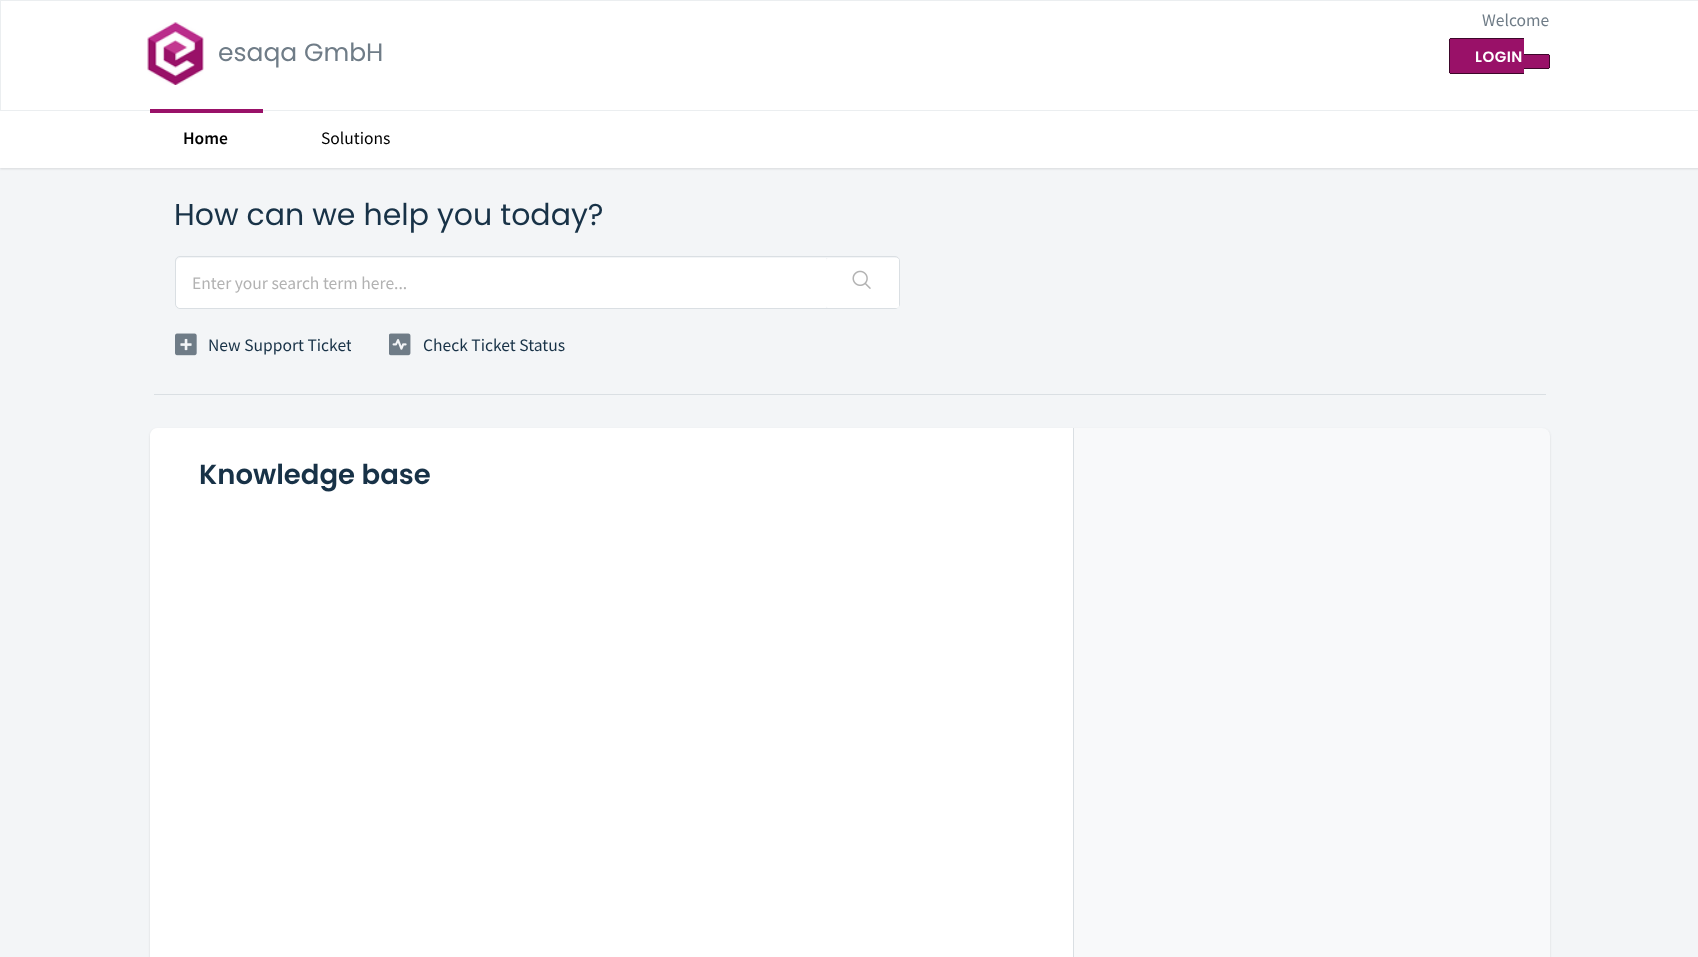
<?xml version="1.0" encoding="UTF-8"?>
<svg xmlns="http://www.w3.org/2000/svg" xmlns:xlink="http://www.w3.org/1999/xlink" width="1698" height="957">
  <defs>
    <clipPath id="clip1"><rect x="175" y="324" width="176" height="44" /></clipPath>
  </defs>
  <rect width="100%" height="100%" fill="#f3f5f7" />
  <rect x="0.5" y="0.5" width="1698" height="110" fill="#ffffff" stroke="#ebeef0" />
  <image x="147" y="22" width="57" height="63" xlink:href="image1.png" />
  <path d="M 1451.5 38 h 72.5 v 36 h -72.5 c -1.5 0 -2.5 -1 -2.5 -2.5 v -31 c 0 -1.5 1 -2.5 2.5 -2.5 z" fill="#991168" />
  <rect x="1450" y="38" width="74" height="1" fill="#3d072a" />
  <rect x="1450" y="73" width="74" height="1" fill="#3d072a" />
  <rect x="1449" y="39" width="1" height="34" fill="#3d072a" />
  <path d="M 1524 54 h 23.5 c 1.5 0 2.5 1 2.5 2.5 v 10 c 0 1.5 -1 2.5 -2.5 2.5 h -23.5 z" fill="#991168" />
  <rect x="1524" y="54" width="25" height="1" fill="#3d072a" />
  <rect x="1549" y="55" width="1" height="13" fill="#3d072a" />
  <rect x="1524" y="68" width="25" height="1" fill="#3d072a" />
  <rect y="113" width="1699" height="56" fill="#3f3f44" fill-opacity="0.15" filter="blur(1px)" />
  <rect y="111" width="1698" height="57" fill="#ffffff" />
  <rect x="150" y="109" width="113" height="4" fill="#991168" />
  <rect x="154" y="394" width="1392" height="1" fill="#dadfe3" />
  <rect x="175.5" y="256.5" width="724" height="52" rx="4.5" fill="none" stroke="#dadfe3" />
  <path d="M 181 258 h 645 v 50 h -645 c -3 0 -5 -2 -5 -5 v -40 c 0 -3 2 -5 5 -5 z" fill="#ffffff" />
  <rect x="826" y="258" width="73" height="50" rx="2.5" fill="#ffffff" />
  <image x="852" y="270" width="19" height="19" xlink:href="image2.png" />
  <image x="175" y="333" width="22" height="23" xlink:href="image3.png" />
  <image x="389" y="333" width="22" height="23" xlink:href="image4.png" />
  <rect x="150" y="429" width="1400" height="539" rx="8" fill="#3f3f44" fill-opacity="0.15" filter="blur(1px)" />
  <rect x="150" y="428" width="1400" height="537" rx="8" fill="#f8f9fa" />
  <path d="M 158 428 h 916 v 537 h -916 c -4.5 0 -8 -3.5 -8 -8 v -521 c 0 -4.5 3.5 -8 8 -8 z" fill="#ffffff" />
  <rect x="1073" y="428" width="1" height="529" fill="#dadfe3" />
  <text x="218" y="61" style="font-family: Poppins; font-size: 25px; fill: #6f7c87">esaqa GmbH</text>
  <text x="1482" y="26" style="font-family: Source Sans Pro; font-size: 17.5px; fill: #6f7c87">Welcome</text>
  <text x="1475" y="62" style="font-family: Poppins; font-size: 15px; font-weight: 600; letter-spacing: 0.5px; fill: #ffffff">LOGIN</text>
  <text x="183" y="144" style="font-family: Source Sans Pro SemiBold; font-size: 17.5px; font-weight: 600; fill: #000000">Home</text>
  <text x="321" y="144" style="font-family: Source Sans Pro; font-size: 17.5px; fill: #000000">Solutions</text>
  <text x="174" y="225" style="font-family: Poppins; font-size: 30px; fill: #183247">How can we help you today?</text>
  <text x="192" y="289" style="font-family: Source Sans Pro; font-size: 17.5px; fill: #b2b2b2">Enter your search term here...</text>
  <g clip-path="url(#clip1)">
    <text x="208" y="351" style="font-family: Source Sans Pro; font-size: 17.5px; fill: #183247">New Support Ticket</text>
  </g>
  <text x="423" y="351" style="font-family: Source Sans Pro; font-size: 17.5px; fill: #183247">Check Ticket Status</text>
  <text x="199" y="484" style="font-family: Poppins; font-size: 27.5px; font-weight: 600; fill: #183247">Knowledge base</text>
</svg>
